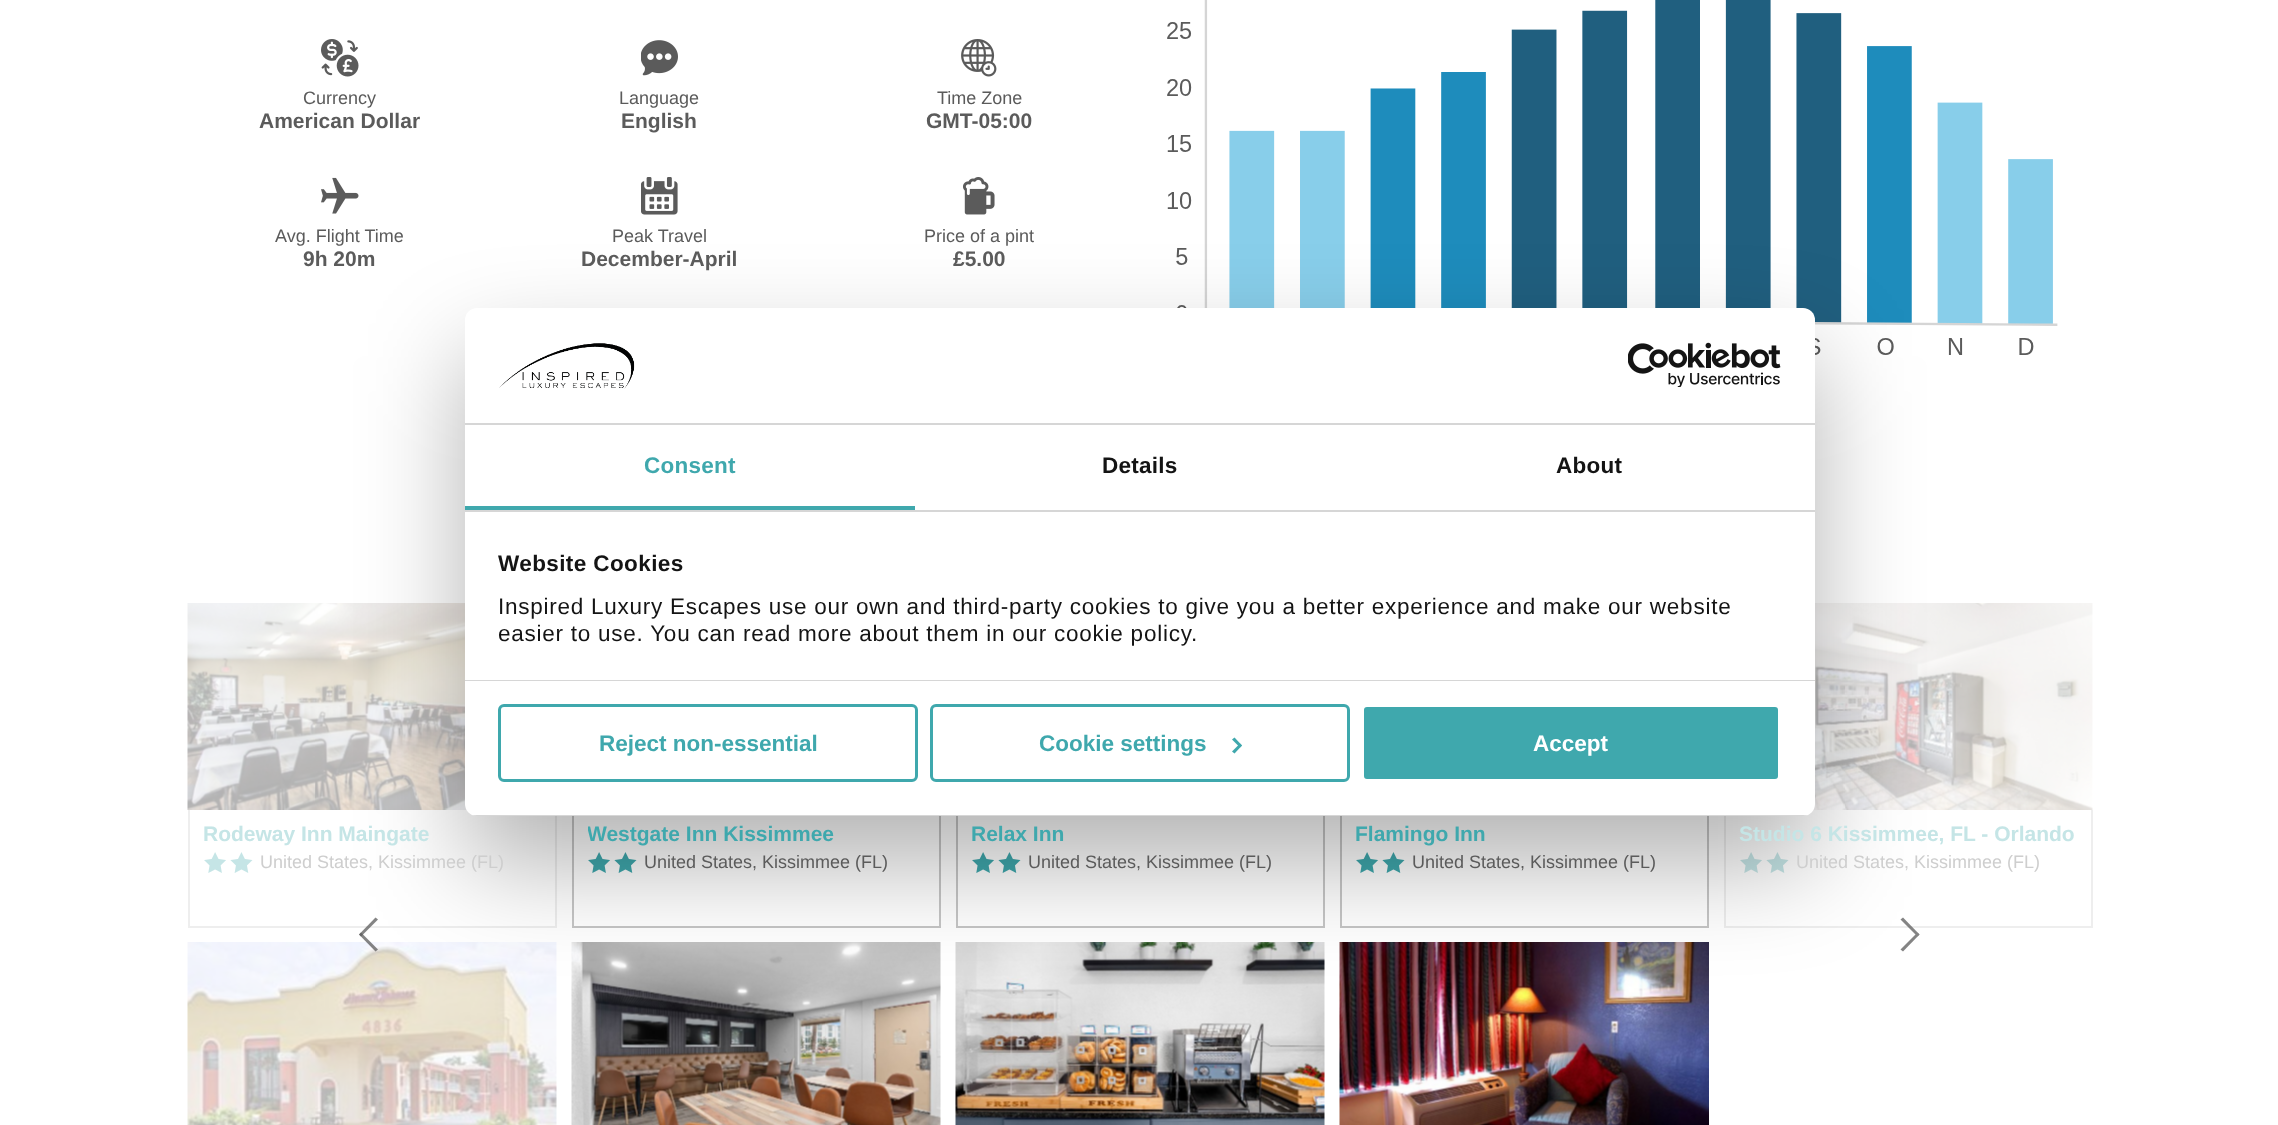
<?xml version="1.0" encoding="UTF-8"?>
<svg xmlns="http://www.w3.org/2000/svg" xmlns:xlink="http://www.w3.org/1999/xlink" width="2278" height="1125">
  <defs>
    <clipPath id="clip1"><rect x="465" y="308" width="1350" height="508" rx="12" /></clipPath>
    <clipPath id="clip2"><rect x="588" y="822" width="336" height="24" /></clipPath>
  </defs>
  <rect width="100%" height="100%" fill="#ffffff" />
  <image x="321" y="39" width="38" height="38" xlink:href="image1.png" />
  <image x="641" y="40" width="37" height="36" xlink:href="image2.png" />
  <image x="961" y="39" width="36" height="38" xlink:href="image3.png" />
  <image x="321" y="177" width="38" height="37" xlink:href="image4.png" />
  <image x="641" y="177" width="37" height="38" xlink:href="image5.png" />
  <image x="963" y="177" width="32" height="38" xlink:href="image6.png" />
  <image x="1167" y="0" width="891" height="355" xlink:href="image7.png" />
  <image x="187" y="603" width="280" height="207" xlink:href="image8.png" />
  <rect x="555" y="810" width="2" height="117" fill="#eeeeee" />
  <rect x="188" y="926" width="369" height="2" fill="#eeeeee" />
  <rect x="188" y="810" width="2" height="117" fill="#eeeeee" />
  <image x="204" y="852" width="49" height="21" xlink:href="image9.png" />
  <image x="187" y="942" width="370" height="183" xlink:href="image10.png" />
  <rect x="939" y="810" width="2" height="117" fill="#c6c6c6" />
  <rect x="572" y="926" width="369" height="2" fill="#c6c6c6" />
  <rect x="572" y="810" width="2" height="117" fill="#c6c6c6" />
  <image x="588" y="852" width="49" height="21" xlink:href="image11.png" />
  <image x="571" y="942" width="370" height="183" xlink:href="image12.png" />
  <rect x="1323" y="810" width="2" height="117" fill="#c6c6c6" />
  <rect x="956" y="926" width="369" height="2" fill="#c6c6c6" />
  <rect x="956" y="810" width="2" height="117" fill="#c6c6c6" />
  <image x="972" y="852" width="49" height="21" xlink:href="image11.png" />
  <image x="955" y="942" width="370" height="183" xlink:href="image13.png" />
  <rect x="1707" y="810" width="2" height="117" fill="#c6c6c6" />
  <rect x="1340" y="926" width="369" height="2" fill="#c6c6c6" />
  <rect x="1340" y="810" width="2" height="117" fill="#c6c6c6" />
  <image x="1356" y="852" width="49" height="21" xlink:href="image11.png" />
  <image x="1339" y="942" width="370" height="183" xlink:href="image14.png" />
  <image x="1813" y="603" width="280" height="207" xlink:href="image15.png" />
  <rect x="2091" y="810" width="2" height="117" fill="#eeeeee" />
  <rect x="1724" y="926" width="369" height="2" fill="#eeeeee" />
  <rect x="1724" y="810" width="2" height="117" fill="#eeeeee" />
  <image x="1740" y="852" width="49" height="21" xlink:href="image9.png" />
  <path d="M 375.5 951.5 l -16.5 -17 l 2 -2 l 17 17 z" fill="#5b5b5b" fill-opacity="0.75" />
  <path d="M 361 936.5 l -2 -2 l 16.5 -17 l 2.5 2 z" fill="#5b5b5b" fill-opacity="0.75" />
  <path d="M 1903 917.5 l 16.5 17 l -2 2 l -17 -17 z" fill="#5b5b5b" fill-opacity="0.75" />
  <path d="M 1917.5 932.5 l 2 2 l -16.5 17 l -2.5 -2 z" fill="#848484" />
  <rect x="465" y="356" width="1350" height="508" rx="12" fill="#000000" fill-opacity="0.3" filter="blur(51px)" />
  <rect x="465" y="308" width="1350" height="508" rx="12" fill="#ffffff" />
  <rect x="465" y="423" width="1350" height="2" fill="#d6d6d6" />
  <image x="499" y="343" width="136" height="46" xlink:href="image16.png" />
  <image x="1628" y="342" width="153" height="45" xlink:href="image17.png" />
  <rect x="465" y="510" width="1350" height="2" fill="#d6d6d6" />
  <rect x="465" y="506" width="450" height="4" fill="#3fa8ad" />
  <rect x="465" y="680" width="1350" height="1" fill="#d6d6d6" />
  <g clip-path="url(#clip1)">
    <rect x="465" y="815" width="1350" height="1" fill="#d6d6d6" />
  </g>
  <rect x="499.5" y="705.5" width="417" height="75" rx="4.5" fill="none" stroke="#3fa8ad" stroke-width="3" />
  <rect x="931.5" y="705.5" width="417" height="75" rx="4.5" fill="none" stroke="#3fa8ad" stroke-width="3" />
  <path d="M 1234.5 737.5 l 7.5 8 l -2 2 l -8 -8 z" fill="#3fa8ad" />
  <path d="M 1240 743.5 l 2 2 l -7.5 8 l -2.5 -2 z" fill="#3fa8ad" />
  <rect x="1362.5" y="705.5" width="417" height="75" rx="4.5" fill="#3fa8ad" stroke="#ffffff" stroke-width="3" />
  <text x="303" y="104" style="font-family: Liberation Sans; font-size: 18px; fill: #5b5b5b">Currency</text>
  <text x="259" y="128" style="font-family: Liberation Sans; font-size: 21px; font-weight: bold; fill: #5b5b5b">American Dollar</text>
  <text x="619" y="104" style="font-family: Liberation Sans; font-size: 18px; fill: #5b5b5b">Language</text>
  <text x="621" y="128" style="font-family: Liberation Sans; font-size: 21px; font-weight: bold; fill: #5b5b5b">English</text>
  <text x="937" y="104" style="font-family: Liberation Sans; font-size: 18px; fill: #5b5b5b">Time Zone</text>
  <text x="926" y="128" style="font-family: Liberation Sans; font-size: 21px; font-weight: bold; fill: #5b5b5b">GMT-05:00</text>
  <text x="275" y="242" style="font-family: Liberation Sans; font-size: 18px; fill: #5b5b5b">Avg. Flight Time</text>
  <text x="303" y="266" style="font-family: Liberation Sans; font-size: 21px; font-weight: bold; fill: #5b5b5b">9h 20m</text>
  <text x="612" y="242" style="font-family: Liberation Sans; font-size: 18px; fill: #5b5b5b">Peak Travel</text>
  <text x="581" y="266" style="font-family: Liberation Sans; font-size: 21px; font-weight: bold; fill: #5b5b5b">December-April</text>
  <text x="924" y="242" style="font-family: Liberation Sans; font-size: 18px; fill: #5b5b5b">Price of a pint</text>
  <text x="953" y="266" style="font-family: Liberation Sans; font-size: 21px; font-weight: bold; fill: #5b5b5b">£5.00</text>
  <text x="203" y="841" style="font-family: Liberation Sans; font-size: 21px; font-weight: bold; fill: #c5e5e6">Rodeway Inn Maingate</text>
  <text x="260" y="868" style="font-family: Liberation Sans; font-size: 18px; fill: #cecece">United States, Kissimmee (FL)</text>
  <g clip-path="url(#clip2)">
    <text x="587" y="841" style="font-family: Liberation Sans; font-size: 21px; font-weight: bold; fill: #3fa8ad">Westgate Inn Kissimmee</text>
  </g>
  <text x="644" y="868" style="font-family: Liberation Sans; font-size: 18px; fill: #5b5b5b">United States, Kissimmee (FL)</text>
  <text x="971" y="841" style="font-family: Liberation Sans; font-size: 21px; font-weight: bold; fill: #3fa8ad">Relax Inn</text>
  <text x="1028" y="868" style="font-family: Liberation Sans; font-size: 18px; fill: #5b5b5b">United States, Kissimmee (FL)</text>
  <text x="1355" y="841" style="font-family: Liberation Sans; font-size: 21px; font-weight: bold; fill: #3fa8ad">Flamingo Inn</text>
  <text x="1412" y="868" style="font-family: Liberation Sans; font-size: 18px; fill: #5b5b5b">United States, Kissimmee (FL)</text>
  <text x="1739" y="841" style="font-family: Liberation Sans; font-size: 21px; font-weight: bold; fill: #c5e5e6">Studio 6 Kissimmee, FL - Orlando</text>
  <text x="1796" y="868" style="font-family: Liberation Sans; font-size: 18px; fill: #cecece">United States, Kissimmee (FL)</text>
  <text x="644" y="473" style="font-family: Liberation Sans; font-size: 22.5px; font-weight: bold; letter-spacing: 0.25px; fill: #3fa8ad">Consent</text>
  <text x="1102" y="473" style="font-family: Liberation Sans; font-size: 22.5px; font-weight: bold; letter-spacing: 0.25px; fill: #141414">Details</text>
  <text x="1556" y="473" style="font-family: Liberation Sans; font-size: 22.5px; font-weight: bold; letter-spacing: 0.25px; fill: #141414">About</text>
  <text x="498" y="571" style="font-family: Liberation Sans; font-size: 22.5px; font-weight: bold; letter-spacing: 0.4px; fill: #141414">Website Cookies</text>
  <text x="498" y="614" style="font-family: Liberation Sans; font-size: 22.5px; letter-spacing: 0.75px; fill: #141414">Inspired Luxury Escapes use our own and third-party cookies to give you a better experience and make our website</text>
  <text x="498" y="641" style="font-family: Liberation Sans; font-size: 22.5px; letter-spacing: 0.75px; fill: #141414">easier to use. You can read more about them in our cookie policy.</text>
  <text x="599" y="751" style="font-family: Liberation Sans; font-size: 22.5px; font-weight: bold; fill: #3fa8ad">Reject non-essential</text>
  <text x="1039" y="751" style="font-family: Liberation Sans; font-size: 22.5px; font-weight: bold; fill: #3fa8ad">Cookie settings</text>
  <text x="1533" y="751" style="font-family: Liberation Sans; font-size: 22.5px; font-weight: bold; fill: #ffffff">Accept</text>
</svg>
